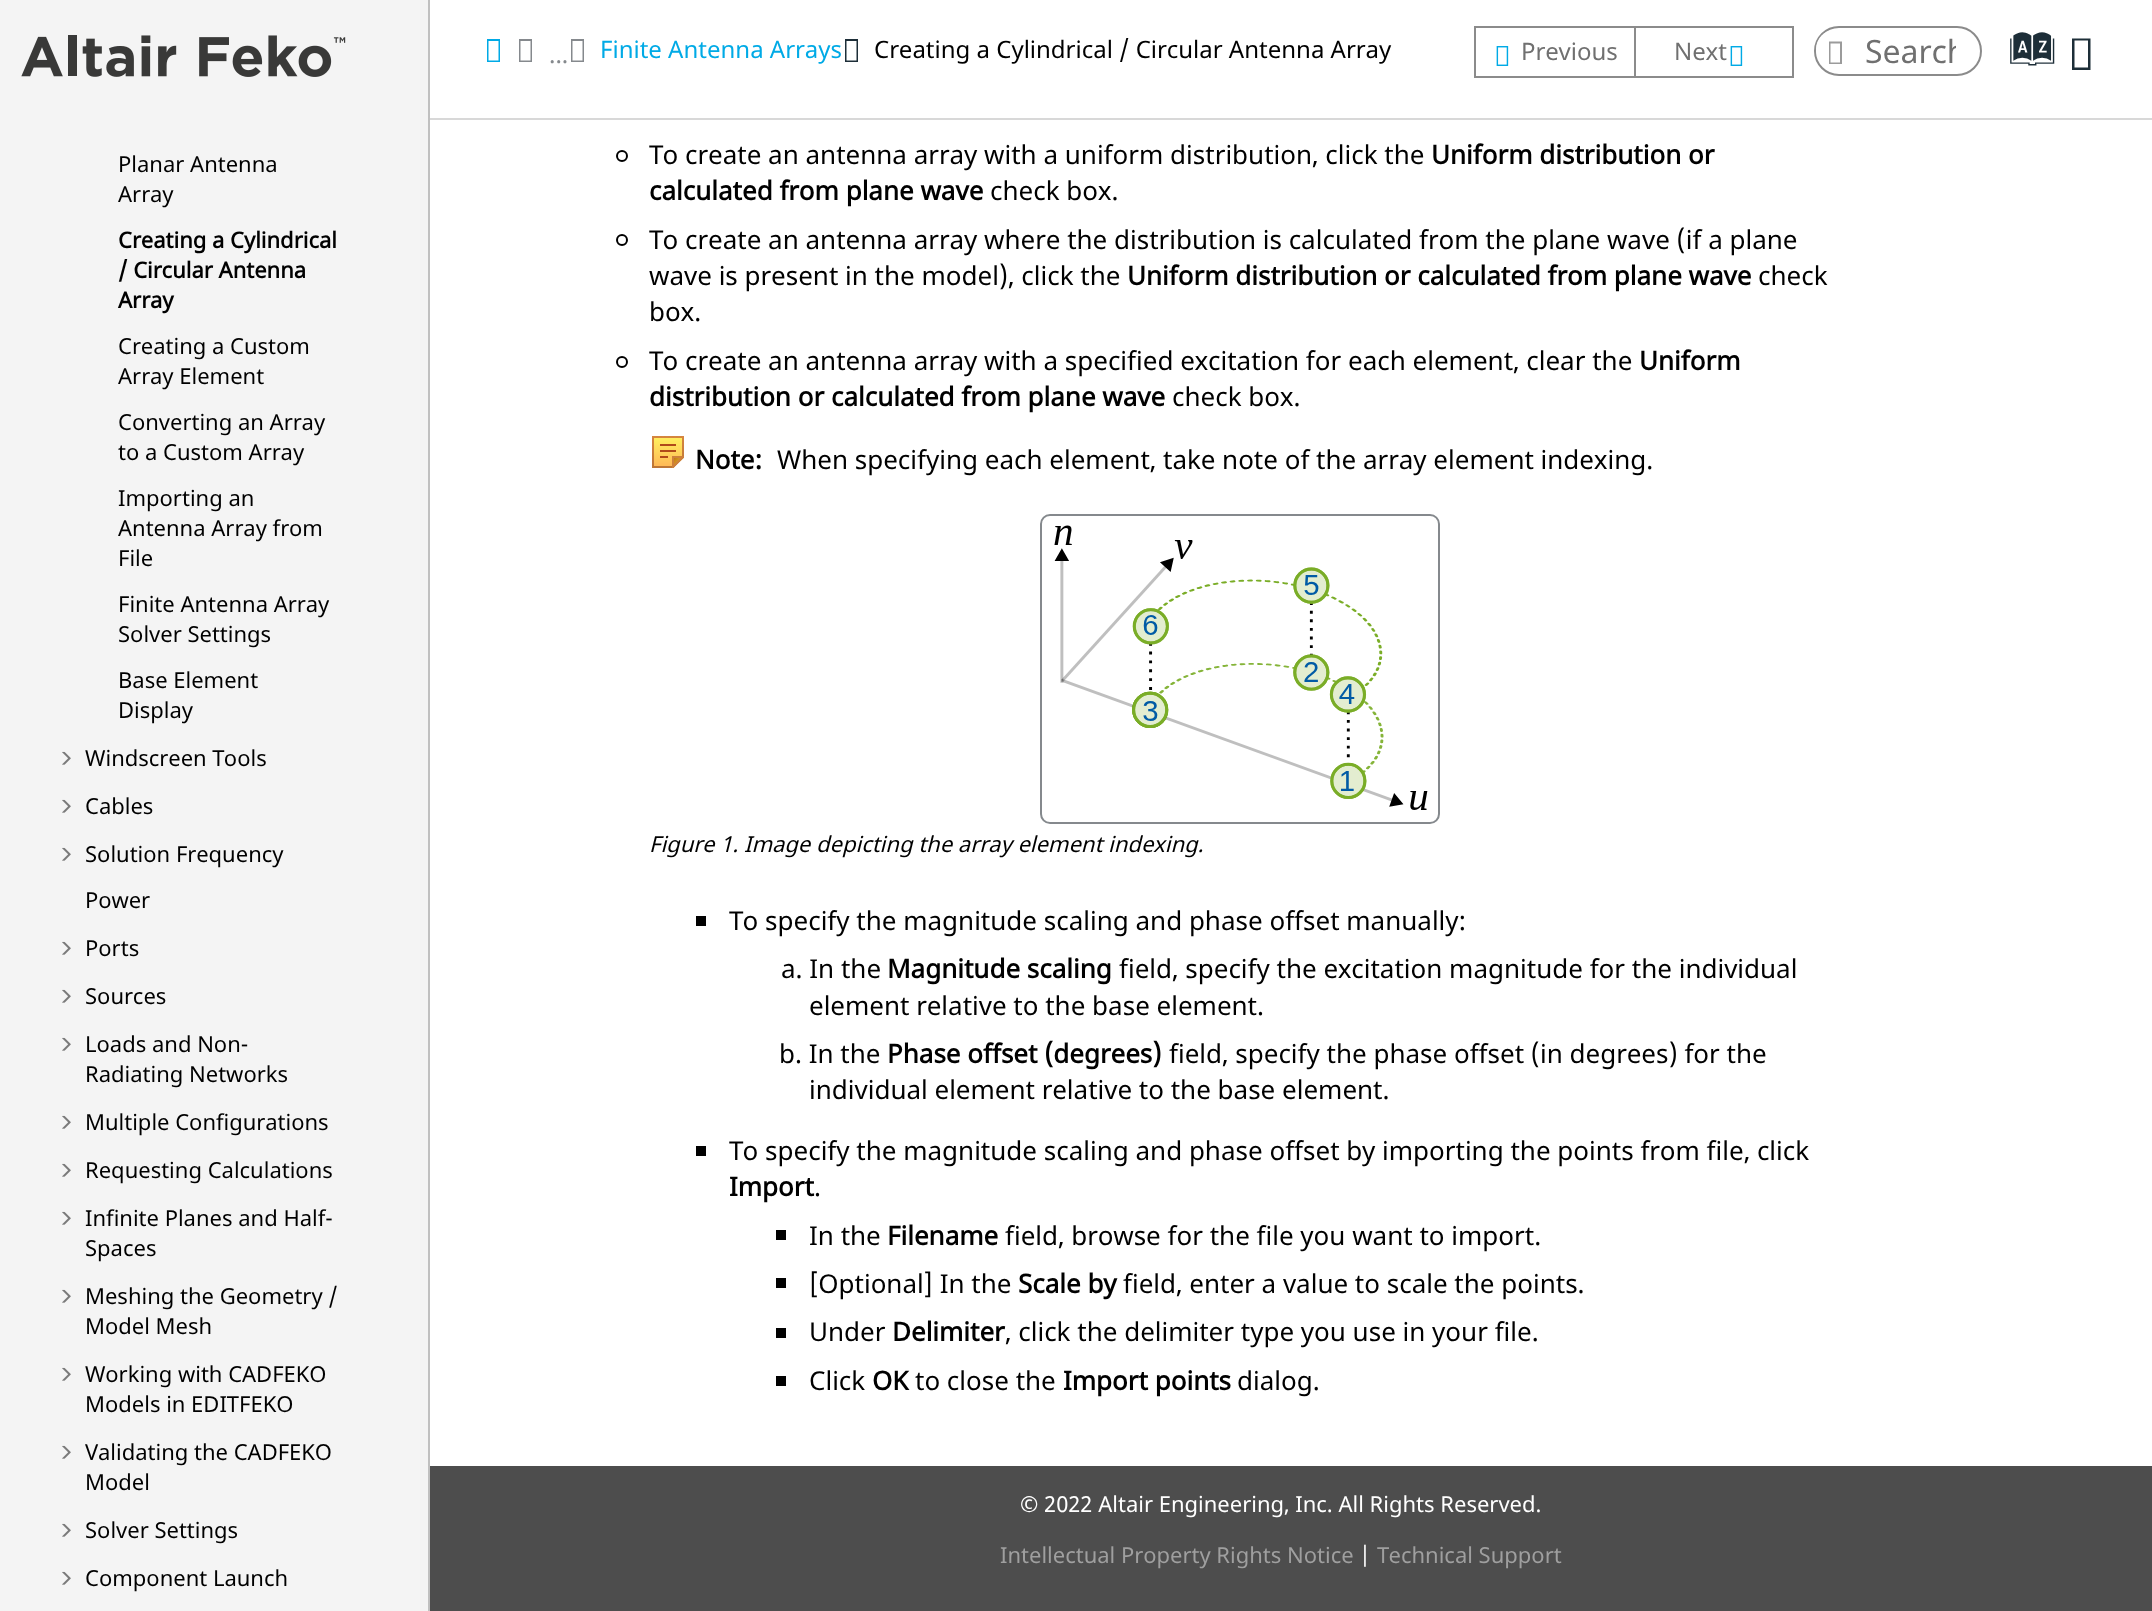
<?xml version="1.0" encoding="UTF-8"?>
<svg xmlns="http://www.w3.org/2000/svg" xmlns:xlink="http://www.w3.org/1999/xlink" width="2152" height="1611">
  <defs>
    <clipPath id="clip1"><rect x="1864" y="28" width="92" height="44" /></clipPath>
  </defs>
  <rect width="100%" height="100%" fill="#ffffff" />
  <rect width="428" height="1611" fill="#f4f4f4" />
  <rect x="428" width="2" height="1611" fill="#c0c0c0" />
  <image x="21" y="35" width="325" height="42" xlink:href="image1.png" />
  <image x="62" y="751" width="9" height="14" xlink:href="image2.png" />
  <image x="62" y="799" width="9" height="14" xlink:href="image2.png" />
  <image x="62" y="847" width="9" height="14" xlink:href="image2.png" />
  <image x="62" y="941" width="9" height="14" xlink:href="image2.png" />
  <image x="62" y="989" width="9" height="14" xlink:href="image2.png" />
  <image x="62" y="1037" width="9" height="14" xlink:href="image2.png" />
  <image x="62" y="1115" width="9" height="14" xlink:href="image2.png" />
  <image x="62" y="1163" width="9" height="14" xlink:href="image2.png" />
  <image x="62" y="1211" width="9" height="14" xlink:href="image2.png" />
  <image x="62" y="1289" width="9" height="14" xlink:href="image2.png" />
  <image x="62" y="1367" width="9" height="14" xlink:href="image2.png" />
  <image x="62" y="1445" width="9" height="14" xlink:href="image2.png" />
  <image x="62" y="1523" width="9" height="14" xlink:href="image2.png" />
  <image x="62" y="1571" width="9" height="14" xlink:href="image2.png" />
  <rect x="430" y="118" width="1722" height="2" fill="#d8d8d8" />
  <path d="M 487 62 v -23 h 13 v 23 z m 1.5 -1.5 h 10 v -19.5 h -10 z" fill="#00aae6" />
  <path d="M 519 62 v -23 h 13 v 23 z m 1.5 -1.5 h 10 v -19.5 h -10 z" fill="#85898d" />
  <path d="M 571 62 v -23 h 13 v 23 z m 1.5 -1.5 h 10 v -19.5 h -10 z" fill="#85898d" />
  <path d="M 845 62 v -23 h 13 v 23 z m 1.5 -1.5 h 10 v -19.5 h -10 z" fill="#1d2e38" />
  <rect x="1474" y="26" width="160" height="2" fill="#8b8b8b" />
  <rect x="1474" y="76" width="160" height="2" fill="#8b8b8b" />
  <rect x="1474" y="26" width="2" height="52" fill="#8b8b8b" />
  <image x="1496" y="46" width="13" height="20" xlink:href="image3.png" />
  <rect x="1635" y="27" width="158" height="50" fill="none" stroke="#8b8b8b" stroke-width="2" />
  <image x="1730" y="46" width="13" height="20" xlink:href="image3.png" />
  <rect x="1815" y="27" width="166" height="48" rx="24" fill="none" stroke="#8b8b8b" stroke-width="2" />
  <rect x="1816" y="30" width="40" height="38" rx="19" fill="#ffffff" />
  <path d="M 1829 64 v -22.5 h 13 v 22.5 z m 1.5 -1.5 h 9.5 v -19 h -9.5 z" fill="#9b9b9b" />
  <path d="M 2072 70 v -31.5 h 18.5 v 31.5 z m 2.5 -2.5 h 13.5 v -27 h -13.5 z" fill="#1d2e38" />
  <circle cx="622" cy="156" r="5" fill="none" stroke="#000000" stroke-width="2" />
  <circle cx="622" cy="240" r="5" fill="none" stroke="#000000" stroke-width="2" />
  <circle cx="622" cy="362" r="5" fill="none" stroke="#000000" stroke-width="2" />
  <image x="652" y="436" width="32" height="32" xlink:href="image4.png" />
  <rect x="1041" y="515" width="398" height="308" rx="9" fill="none" stroke="#85898d" stroke-width="2" />
  <image x="1054" y="525" width="374" height="285" xlink:href="image5.png" />
  <rect x="696" y="916" width="10" height="10" fill="#000000" />
  <rect x="696" y="1146" width="10" height="10" fill="#000000" />
  <rect x="776" y="1230" width="10" height="10" fill="#000000" />
  <rect x="776" y="1278" width="10" height="10" fill="#000000" />
  <rect x="776" y="1328" width="10" height="10" fill="#000000" />
  <rect x="776" y="1376" width="10" height="10" fill="#000000" />
  <rect x="430" y="1466" width="1722" height="145" fill="#4d4d4d" />
  <text x="118" y="172" style="font-family: Noto Sans; font-size: 22px; fill: #000000">Planar Antenna</text>
  <text x="118" y="202" style="font-family: Noto Sans; font-size: 22px; fill: #000000">Array</text>
  <text x="118" y="248" style="font-family: Noto Sans; font-size: 22px; font-weight: bold; fill: #000000">Creating a Cylindrical</text>
  <text x="118" y="278" style="font-family: Noto Sans; font-size: 22px; font-weight: bold; fill: #000000">/ Circular Antenna</text>
  <text x="118" y="308" style="font-family: Noto Sans; font-size: 22px; font-weight: bold; fill: #000000">Array</text>
  <text x="118" y="354" style="font-family: Noto Sans; font-size: 22px; fill: #000000">Creating a Custom</text>
  <text x="118" y="384" style="font-family: Noto Sans; font-size: 22px; fill: #000000">Array Element</text>
  <text x="118" y="430" style="font-family: Noto Sans; font-size: 22px; fill: #000000">Converting an Array</text>
  <text x="118" y="460" style="font-family: Noto Sans; font-size: 22px; fill: #000000">to a Custom Array</text>
  <text x="118" y="506" style="font-family: Noto Sans; font-size: 22px; fill: #000000">Importing an</text>
  <text x="118" y="536" style="font-family: Noto Sans; font-size: 22px; fill: #000000">Antenna Array from</text>
  <text x="118" y="566" style="font-family: Noto Sans; font-size: 22px; fill: #000000">File</text>
  <text x="118" y="612" style="font-family: Noto Sans; font-size: 22px; fill: #000000">Finite Antenna Array</text>
  <text x="118" y="642" style="font-family: Noto Sans; font-size: 22px; fill: #000000">Solver Settings</text>
  <text x="118" y="688" style="font-family: Noto Sans; font-size: 22px; fill: #000000">Base Element</text>
  <text x="118" y="718" style="font-family: Noto Sans; font-size: 22px; fill: #000000">Display</text>
  <text x="85" y="766" style="font-family: Noto Sans; font-size: 22px; fill: #000000">Windscreen Tools</text>
  <text x="85" y="814" style="font-family: Noto Sans; font-size: 22px; fill: #000000">Cables</text>
  <text x="85" y="862" style="font-family: Noto Sans; font-size: 22px; fill: #000000">Solution Frequency</text>
  <text x="85" y="908" style="font-family: Noto Sans; font-size: 22px; fill: #000000">Power</text>
  <text x="85" y="956" style="font-family: Noto Sans; font-size: 22px; fill: #000000">Ports</text>
  <text x="85" y="1004" style="font-family: Noto Sans; font-size: 22px; fill: #000000">Sources</text>
  <text x="85" y="1052" style="font-family: Noto Sans; font-size: 22px; fill: #000000">Loads and Non-</text>
  <text x="85" y="1082" style="font-family: Noto Sans; font-size: 22px; fill: #000000">Radiating Networks</text>
  <text x="85" y="1130" style="font-family: Noto Sans; font-size: 22px; fill: #000000">Multiple Configurations</text>
  <text x="85" y="1178" style="font-family: Noto Sans; font-size: 22px; fill: #000000">Requesting Calculations</text>
  <text x="85" y="1226" style="font-family: Noto Sans; font-size: 22px; fill: #000000">Infinite Planes and Half-</text>
  <text x="85" y="1256" style="font-family: Noto Sans; font-size: 22px; fill: #000000">Spaces</text>
  <text x="85" y="1304" style="font-family: Noto Sans; font-size: 22px; fill: #000000">Meshing the Geometry /</text>
  <text x="85" y="1334" style="font-family: Noto Sans; font-size: 22px; fill: #000000">Model Mesh</text>
  <text x="85" y="1382" style="font-family: Noto Sans; font-size: 22px; fill: #000000">Working with CADFEKO</text>
  <text x="85" y="1412" style="font-family: Noto Sans; font-size: 22px; fill: #000000">Models in EDITFEKO</text>
  <text x="85" y="1460" style="font-family: Noto Sans; font-size: 22px; fill: #000000">Validating the CADFEKO</text>
  <text x="85" y="1490" style="font-family: Noto Sans; font-size: 22px; fill: #000000">Model</text>
  <text x="85" y="1538" style="font-family: Noto Sans; font-size: 22px; fill: #000000">Solver Settings</text>
  <text x="85" y="1586" style="font-family: Noto Sans; font-size: 22px; fill: #000000">Component Launch</text>
  <text x="549" y="63" style="font-family: Noto Sans; font-size: 24px; fill: #85898d">...</text>
  <text x="600" y="58" style="font-family: Noto Sans; font-size: 24px; fill: #00aae6">Finite Antenna Arrays</text>
  <text x="874" y="58" style="font-family: Noto Sans; font-size: 24px; fill: #000000">Creating a Cylindrical / Circular Antenna Array</text>
  <text x="1521" y="60" style="font-family: Noto Sans; font-size: 24px; fill: #707070">Previous</text>
  <text x="1674" y="60" style="font-family: Noto Sans; font-size: 24px; fill: #707070">Next</text>
  <g clip-path="url(#clip1)">
    <text x="1865" y="63" style="font-family: Noto Sans; font-size: 32px; fill: #707070">Search</text>
  </g>
  <text x="2015" y="71" style="font-family: Oxygen; font-size: 47px; fill: #1d2e38">a</text>
  <text x="649" y="164" style="font-family: Noto Sans; font-size: 26px; fill: #000000">To create an antenna array with a uniform distribution, click the</text>
  <text x="1431" y="164" style="font-family: Noto Sans; font-size: 26px; font-weight: bold; fill: #000000">Uniform distribution or</text>
  <text x="649" y="200" style="font-family: Noto Sans; font-size: 26px; font-weight: bold; fill: #000000">calculated from plane wave</text>
  <text x="990" y="200" style="font-family: Noto Sans; font-size: 26px; fill: #000000">check box.</text>
  <text x="649" y="249" style="font-family: Noto Sans; font-size: 26px; fill: #000000">To create an antenna array where the distribution is calculated from the plane wave (if a plane</text>
  <text x="649" y="285" style="font-family: Noto Sans; font-size: 26px; fill: #000000">wave is present in the model), click the</text>
  <text x="1127" y="285" style="font-family: Noto Sans; font-size: 26px; font-weight: bold; fill: #000000">Uniform distribution or calculated from plane wave</text>
  <text x="1758" y="285" style="font-family: Noto Sans; font-size: 26px; fill: #000000">check</text>
  <text x="649" y="321" style="font-family: Noto Sans; font-size: 26px; fill: #000000">box.</text>
  <text x="649" y="370" style="font-family: Noto Sans; font-size: 26px; fill: #000000">To create an antenna array with a specified excitation for each element, clear the</text>
  <text x="1639" y="370" style="font-family: Noto Sans; font-size: 26px; font-weight: bold; fill: #000000">Uniform</text>
  <text x="649" y="406" style="font-family: Noto Sans; font-size: 26px; font-weight: bold; fill: #000000">distribution or calculated from plane wave</text>
  <text x="1172" y="406" style="font-family: Noto Sans; font-size: 26px; fill: #000000">check box.</text>
  <text x="695" y="469" style="font-family: Noto Sans; font-size: 26px; font-weight: bold; fill: #000000">Note:</text>
  <text x="777" y="469" style="font-family: Noto Sans; font-size: 26px; fill: #000000">When specifying each element, take note of the array element indexing.</text>
  <text x="649" y="852" style="font-family: Noto Sans; font-size: 22px; font-style: italic; fill: #000000">Figure 1. Image depicting the array element indexing.</text>
  <text x="729" y="930" style="font-family: Noto Sans; font-size: 26px; fill: #000000">To specify the magnitude scaling and phase offset manually:</text>
  <text x="781" y="978" style="font-family: Noto Sans; font-size: 26px; fill: #000000">a. In the</text>
  <text x="887" y="978" style="font-family: Noto Sans; font-size: 26px; font-weight: bold; fill: #000000">Magnitude scaling</text>
  <text x="1119" y="978" style="font-family: Noto Sans; font-size: 26px; fill: #000000">field, specify the excitation magnitude for the individual</text>
  <text x="809" y="1015" style="font-family: Noto Sans; font-size: 26px; fill: #000000">element relative to the base element.</text>
  <text x="779" y="1063" style="font-family: Noto Sans; font-size: 26px; fill: #000000">b. In the</text>
  <text x="887" y="1063" style="font-family: Noto Sans; font-size: 26px; font-weight: bold; fill: #000000">Phase offset (degrees)</text>
  <text x="1169" y="1063" style="font-family: Noto Sans; font-size: 26px; fill: #000000">field, specify the phase offset (in degrees) for the</text>
  <text x="809" y="1099" style="font-family: Noto Sans; font-size: 26px; fill: #000000">individual element relative to the base element.</text>
  <text x="729" y="1160" style="font-family: Noto Sans; font-size: 26px; fill: #000000">To specify the magnitude scaling and phase offset by importing the points from file, click</text>
  <text x="729" y="1196" style="font-family: Noto Sans; font-size: 26px; font-weight: bold; fill: #000000">Import</text>
  <text x="814" y="1196" style="font-family: Noto Sans; font-size: 26px; fill: #000000">.</text>
  <text x="809" y="1245" style="font-family: Noto Sans; font-size: 26px; fill: #000000">In the</text>
  <text x="887" y="1245" style="font-family: Noto Sans; font-size: 26px; font-weight: bold; fill: #000000">Filename</text>
  <text x="1005" y="1245" style="font-family: Noto Sans; font-size: 26px; fill: #000000">field, browse for the file you want to import.</text>
  <text x="809" y="1293" style="font-family: Noto Sans; font-size: 26px; fill: #000000">[Optional] In the</text>
  <text x="1018" y="1293" style="font-family: Noto Sans; font-size: 26px; font-weight: bold; fill: #000000">Scale by</text>
  <text x="1123" y="1293" style="font-family: Noto Sans; font-size: 26px; fill: #000000">field, enter a value to scale the points.</text>
  <text x="809" y="1341" style="font-family: Noto Sans; font-size: 26px; fill: #000000">Under</text>
  <text x="892" y="1341" style="font-family: Noto Sans; font-size: 26px; font-weight: bold; fill: #000000">Delimiter</text>
  <text x="1005" y="1341" style="font-family: Noto Sans; font-size: 26px; fill: #000000">, click the delimiter type you use in your file.</text>
  <text x="809" y="1390" style="font-family: Noto Sans; font-size: 26px; fill: #000000">Click</text>
  <text x="872" y="1390" style="font-family: Noto Sans; font-size: 26px; font-weight: bold; fill: #000000">OK</text>
  <text x="915" y="1390" style="font-family: Noto Sans; font-size: 26px; fill: #000000">to close the</text>
  <text x="1063" y="1390" style="font-family: Noto Sans; font-size: 26px; font-weight: bold; fill: #000000">Import points</text>
  <text x="1237" y="1390" style="font-family: Noto Sans; font-size: 26px; fill: #000000">dialog.</text>
  <text x="1020" y="1512" style="font-family: Noto Sans; font-size: 22px; fill: #ffffff">© 2022 Altair Engineering, Inc. All Rights Reserved.</text>
  <text x="1000" y="1563" style="font-family: Noto Sans; font-size: 22px; fill: #9f9f9f">Intellectual Property Rights Notice</text>
  <text x="1359" y="1563" style="font-family: Noto Sans; font-size: 22px; fill: #ffffff">|</text>
  <text x="1377" y="1563" style="font-family: Noto Sans; font-size: 22px; fill: #9f9f9f">Technical Support</text>
</svg>
